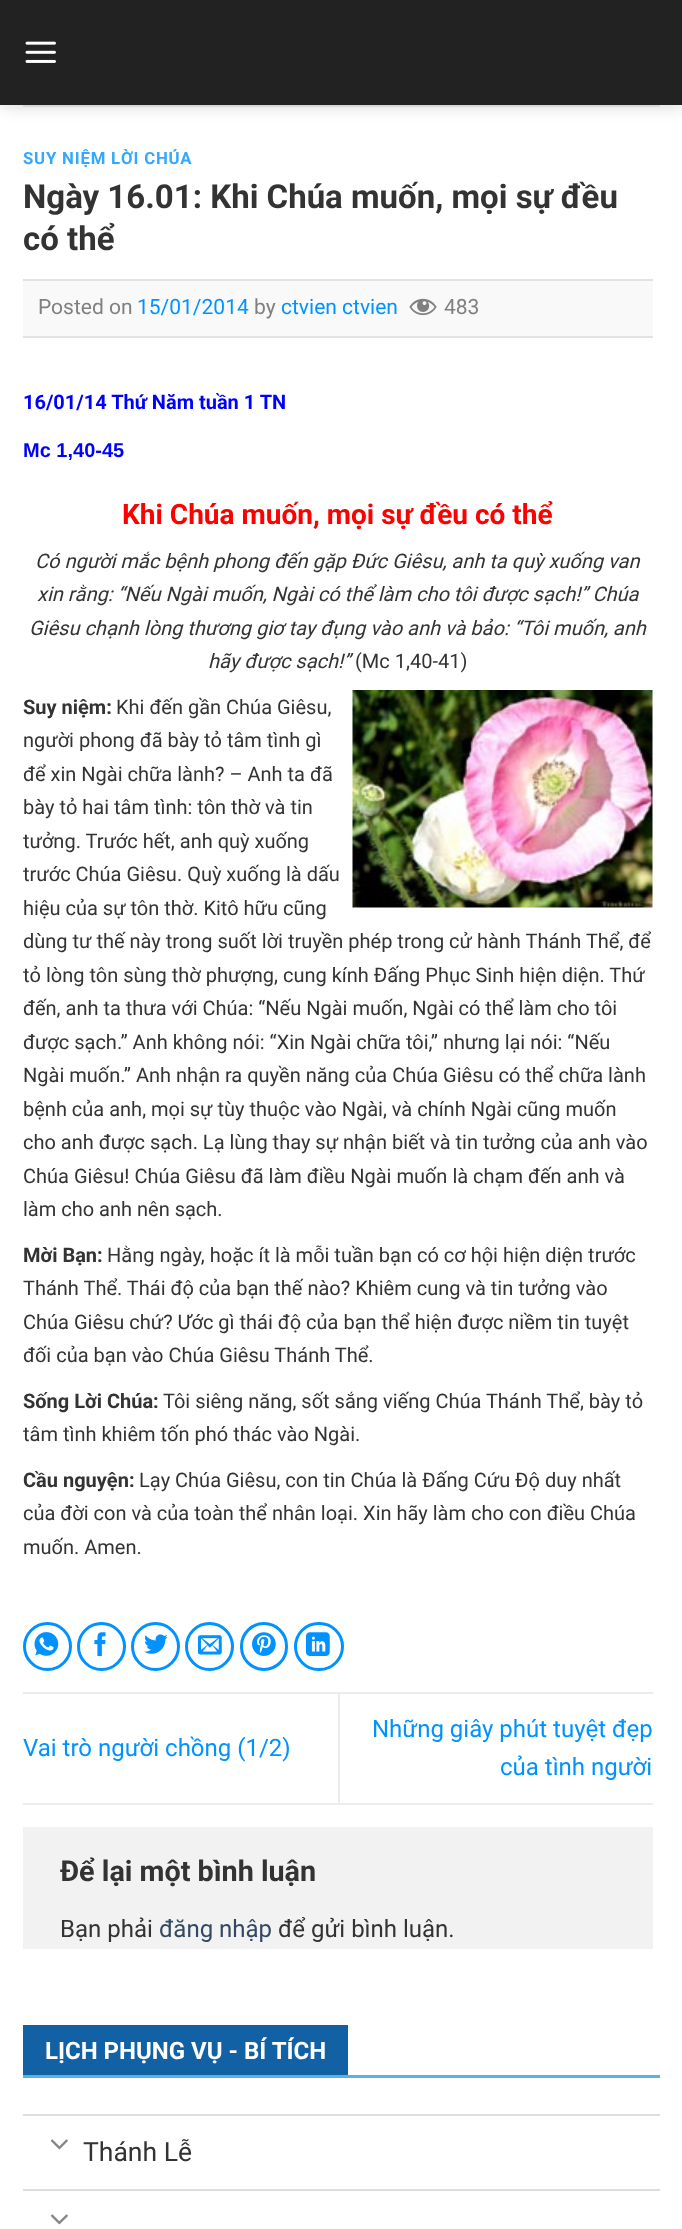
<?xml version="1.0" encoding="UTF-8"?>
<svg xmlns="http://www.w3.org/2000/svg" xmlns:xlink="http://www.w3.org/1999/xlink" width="682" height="2229">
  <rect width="100%" height="100%" fill="#ffffff" />
  <rect x="2" y="2" width="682" height="105" fill="#000000" fill-opacity="0.15" filter="blur(7.5px)" />
  <rect width="682" height="105" fill="#222222" />
  <image x="25" y="41" width="31" height="22" xlink:href="image1.png" />
  <rect x="23" y="105" width="637" height="2" fill="#d8d8d8" />
  <rect x="23" y="281" width="630" height="55" fill="#f9f9f9" />
  <rect x="23" y="279" width="630" height="2" fill="#e2e2e2" />
  <rect x="23" y="336" width="630" height="2" fill="#e2e2e2" />
  <image x="409" y="298" width="28" height="18" xlink:href="image2.png" />
  <image x="352" y="690" width="301" height="218" xlink:href="image3.png" />
  <circle cx="47.5" cy="1646.5" r="23" fill="none" stroke="#0092ff" stroke-width="3" />
  <image x="34" y="1632" width="25" height="24" xlink:href="image4.png" />
  <circle cx="101.5" cy="1646.5" r="23" fill="none" stroke="#0092ff" stroke-width="3" />
  <image x="94" y="1632" width="12" height="24" xlink:href="image5.png" />
  <circle cx="155.5" cy="1646.5" r="23" fill="none" stroke="#0092ff" stroke-width="3" />
  <image x="144" y="1634" width="24" height="20" xlink:href="image6.png" />
  <circle cx="209.5" cy="1646.5" r="23" fill="none" stroke="#0092ff" stroke-width="3" />
  <image x="198" y="1635" width="24" height="20" xlink:href="image7.png" />
  <rect x="241.5" y="1623.5" width="45" height="46" rx="22.5" fill="none" stroke="#0092ff" stroke-width="3" />
  <image x="252" y="1632" width="24" height="24" xlink:href="image8.png" />
  <rect x="295.5" y="1623.5" width="47" height="46" rx="23" fill="none" stroke="#0092ff" stroke-width="3" />
  <image x="306" y="1632" width="24" height="24" xlink:href="image9.png" />
  <rect x="23" y="1692" width="630" height="2" fill="#ececec" />
  <rect x="23" y="1803" width="630" height="2" fill="#ececec" />
  <rect x="338" y="1694" width="2" height="109" fill="#ececec" />
  <rect x="23" y="1827" width="630" height="122" fill="#f2f2f2" />
  <rect x="23" y="2075" width="637" height="3" fill="#57b2e9" />
  <rect x="23" y="2025" width="325" height="50" fill="#1261a5" />
  <rect x="23" y="2114" width="637" height="2" fill="#dddddd" />
  <image x="50" y="2139" width="18" height="11" xlink:href="image10.png" />
  <rect x="23" y="2189" width="637" height="2" fill="#dddddd" />
  <image x="50" y="2214" width="18" height="11" xlink:href="image10.png" />
  <text x="23" y="164" style="font-family: Roboto; font-size: 16.75px; font-weight: bold; letter-spacing: 0.8px; fill: #33a8ff">SUY NIỆM LỜI CHÚA</text>
  <text x="23" y="208" style="font-family: Roboto; font-size: 33px; font-weight: bold; fill: #333333">Ngày 16.01: Khi Chúa muốn, mọi sự đều</text>
  <text x="23" y="250" style="font-family: Roboto; font-size: 33px; font-weight: bold; fill: #333333">có thể</text>
  <text x="38" y="314" style="font-family: Roboto; font-size: 21px; fill: #808080">Posted on</text>
  <text x="137" y="314" style="font-family: Roboto; font-size: 21px; fill: #0092ff">15/01/2014</text>
  <text x="254" y="314" style="font-family: Roboto; font-size: 21px; fill: #808080">by</text>
  <text x="281" y="314" style="font-family: Roboto; font-size: 21px; fill: #0092ff">ctvien ctvien</text>
  <text x="444" y="314" style="font-family: Roboto; font-size: 21px; fill: #808080">483</text>
  <text x="23" y="409" style="font-family: Roboto; font-size: 20px; font-weight: bold; fill: #0000ff">16/01/14 Thứ Năm tuần 1 TN</text>
  <text x="23" y="457" style="font-family: Liberation Sans; font-size: 20px; font-weight: bold; fill: #0000ff">Mc 1,40-45</text>
  <text x="122" y="524" style="font-family: Roboto; font-size: 28px; font-weight: bold; fill: #ff0000">Khi Chúa muốn, mọi sự đều có thể</text>
  <text x="35" y="568" style="font-family: Roboto; font-size: 20px; font-style: italic; fill: #333333">Có người mắc bệnh phong đến gặp Đức Giêsu, anh ta quỳ xuống van</text>
  <text x="37" y="601" style="font-family: Roboto; font-size: 20px; font-style: italic; fill: #333333">xin rằng: “Nếu Ngài muốn, Ngài có thể làm cho tôi được sạch!” Chúa</text>
  <text x="29" y="635" style="font-family: Roboto; font-size: 20px; font-style: italic; fill: #333333">Giêsu chạnh lòng thương giơ tay đụng vào anh và bảo: “Tôi muốn, anh</text>
  <text x="208" y="668" style="font-family: Roboto; font-size: 20px; font-style: italic; fill: #333333">hãy được sạch!”</text>
  <text x="355" y="668" style="font-family: Roboto; font-size: 20px; fill: #333333">(Mc 1,40-41)</text>
  <text x="23" y="714" style="font-family: Roboto; font-size: 20px; font-weight: bold; fill: #333333">Suy niệm:</text>
  <text x="116" y="714" style="font-family: Roboto; font-size: 20px; fill: #333333">Khi đến gần Chúa Giêsu,</text>
  <text x="23" y="747" style="font-family: Roboto; font-size: 20px; fill: #333333">người phong đã bày tỏ tâm tình gì</text>
  <text x="23" y="781" style="font-family: Roboto; font-size: 20px; fill: #333333">để xin Ngài chữa lành? – Anh ta đã</text>
  <text x="23" y="814" style="font-family: Roboto; font-size: 20px; fill: #333333">bày tỏ hai tâm tình: tôn thờ và tin</text>
  <text x="23" y="848" style="font-family: Roboto; font-size: 20px; fill: #333333">tưởng. Trước hết, anh quỳ xuống</text>
  <text x="23" y="881" style="font-family: Roboto; font-size: 20px; fill: #333333">trước Chúa Giêsu. Quỳ xuống là dấu</text>
  <text x="23" y="915" style="font-family: Roboto; font-size: 20px; fill: #333333">hiệu của sự tôn thờ. Kitô hữu cũng</text>
  <text x="23" y="948" style="font-family: Roboto; font-size: 20px; fill: #333333">dùng tư thế này trong suốt lời truyền phép trong cử hành Thánh Thể, để</text>
  <text x="23" y="982" style="font-family: Roboto; font-size: 20px; fill: #333333">tỏ lòng tôn sùng thờ phượng, cung kính Đấng Phục Sinh hiện diện. Thứ</text>
  <text x="23" y="1015" style="font-family: Roboto; font-size: 20px; fill: #333333">đến, anh ta thưa với Chúa: “Nếu Ngài muốn, Ngài có thể làm cho tôi</text>
  <text x="23" y="1049" style="font-family: Roboto; font-size: 20px; fill: #333333">được sạch.” Anh không nói: “Xin Ngài chữa tôi,” nhưng lại nói: “Nếu</text>
  <text x="23" y="1082" style="font-family: Roboto; font-size: 20px; fill: #333333">Ngài muốn.” Anh nhận ra quyền năng của Chúa Giêsu có thể chữa lành</text>
  <text x="23" y="1116" style="font-family: Roboto; font-size: 20px; fill: #333333">bệnh của anh, mọi sự tùy thuộc vào Ngài, và chính Ngài cũng muốn</text>
  <text x="23" y="1149" style="font-family: Roboto; font-size: 20px; fill: #333333">cho anh được sạch. Lạ lùng thay sự nhận biết và tin tưởng của anh vào</text>
  <text x="23" y="1183" style="font-family: Roboto; font-size: 20px; fill: #333333">Chúa Giêsu! Chúa Giêsu đã làm điều Ngài muốn là chạm đến anh và</text>
  <text x="23" y="1216" style="font-family: Roboto; font-size: 20px; fill: #333333">làm cho anh nên sạch.</text>
  <text x="23" y="1262" style="font-family: Roboto; font-size: 20px; font-weight: bold; fill: #333333">Mời Bạn:</text>
  <text x="107" y="1262" style="font-family: Roboto; font-size: 20px; fill: #333333">Hằng ngày, hoặc ít là mỗi tuần bạn có cơ hội hiện diện trước</text>
  <text x="23" y="1295" style="font-family: Roboto; font-size: 20px; fill: #333333">Thánh Thể. Thái độ của bạn thế nào? Khiêm cung và tin tưởng vào</text>
  <text x="23" y="1329" style="font-family: Roboto; font-size: 20px; fill: #333333">Chúa Giêsu chứ? Ước gì thái độ của bạn thể hiện được niềm tin tuyệt</text>
  <text x="23" y="1362" style="font-family: Roboto; font-size: 20px; fill: #333333">đối của bạn vào Chúa Giêsu Thánh Thể.</text>
  <text x="23" y="1408" style="font-family: Roboto; font-size: 20px; font-weight: bold; fill: #333333">Sống Lời Chúa:</text>
  <text x="163" y="1408" style="font-family: Roboto; font-size: 20px; fill: #333333">Tôi siêng năng, sốt sắng viếng Chúa Thánh Thể, bày tỏ</text>
  <text x="23" y="1441" style="font-family: Roboto; font-size: 20px; fill: #333333">tâm tình khiêm tốn phó thác vào Ngài.</text>
  <text x="23" y="1487" style="font-family: Roboto; font-size: 20px; font-weight: bold; fill: #333333">Cầu nguyện:</text>
  <text x="139" y="1487" style="font-family: Roboto; font-size: 20px; fill: #333333">Lạy Chúa Giêsu, con tin Chúa là Đấng Cứu Độ duy nhất</text>
  <text x="23" y="1520" style="font-family: Roboto; font-size: 20px; fill: #333333">của đời con và của toàn thể nhân loại. Xin hãy làm cho con điều Chúa</text>
  <text x="23" y="1554" style="font-family: Roboto; font-size: 20px; fill: #333333">muốn. Amen.</text>
  <text x="23" y="1756" style="font-family: Roboto; font-size: 24px; fill: #0092ff">Vai trò người chồng (1/2)</text>
  <text x="372" y="1737" style="font-family: Roboto; font-size: 24px; fill: #0092ff">Những giây phút tuyệt đẹp</text>
  <text x="500" y="1775" style="font-family: Roboto; font-size: 24px; fill: #0092ff">của tình người</text>
  <text x="60" y="1881" style="font-family: Roboto; font-size: 28.75px; font-weight: bold; fill: #333333">Để lại một bình luận</text>
  <text x="60" y="1937" style="font-family: Roboto; font-size: 24px; fill: #333333">Bạn phải</text>
  <text x="159" y="1937" style="font-family: Roboto; font-size: 24px; fill: #334862">đăng nhập</text>
  <text x="278" y="1937" style="font-family: Roboto; font-size: 24px; fill: #333333">để gửi bình luận.</text>
  <text x="45" y="2059" style="font-family: Roboto; font-size: 24px; font-weight: bold; fill: #ffffff">LỊCH PHỤNG VỤ - BÍ TÍCH</text>
  <text x="83" y="2161" style="font-family: Roboto; font-size: 26.5px; fill: #333333">Thánh Lễ</text>
</svg>
